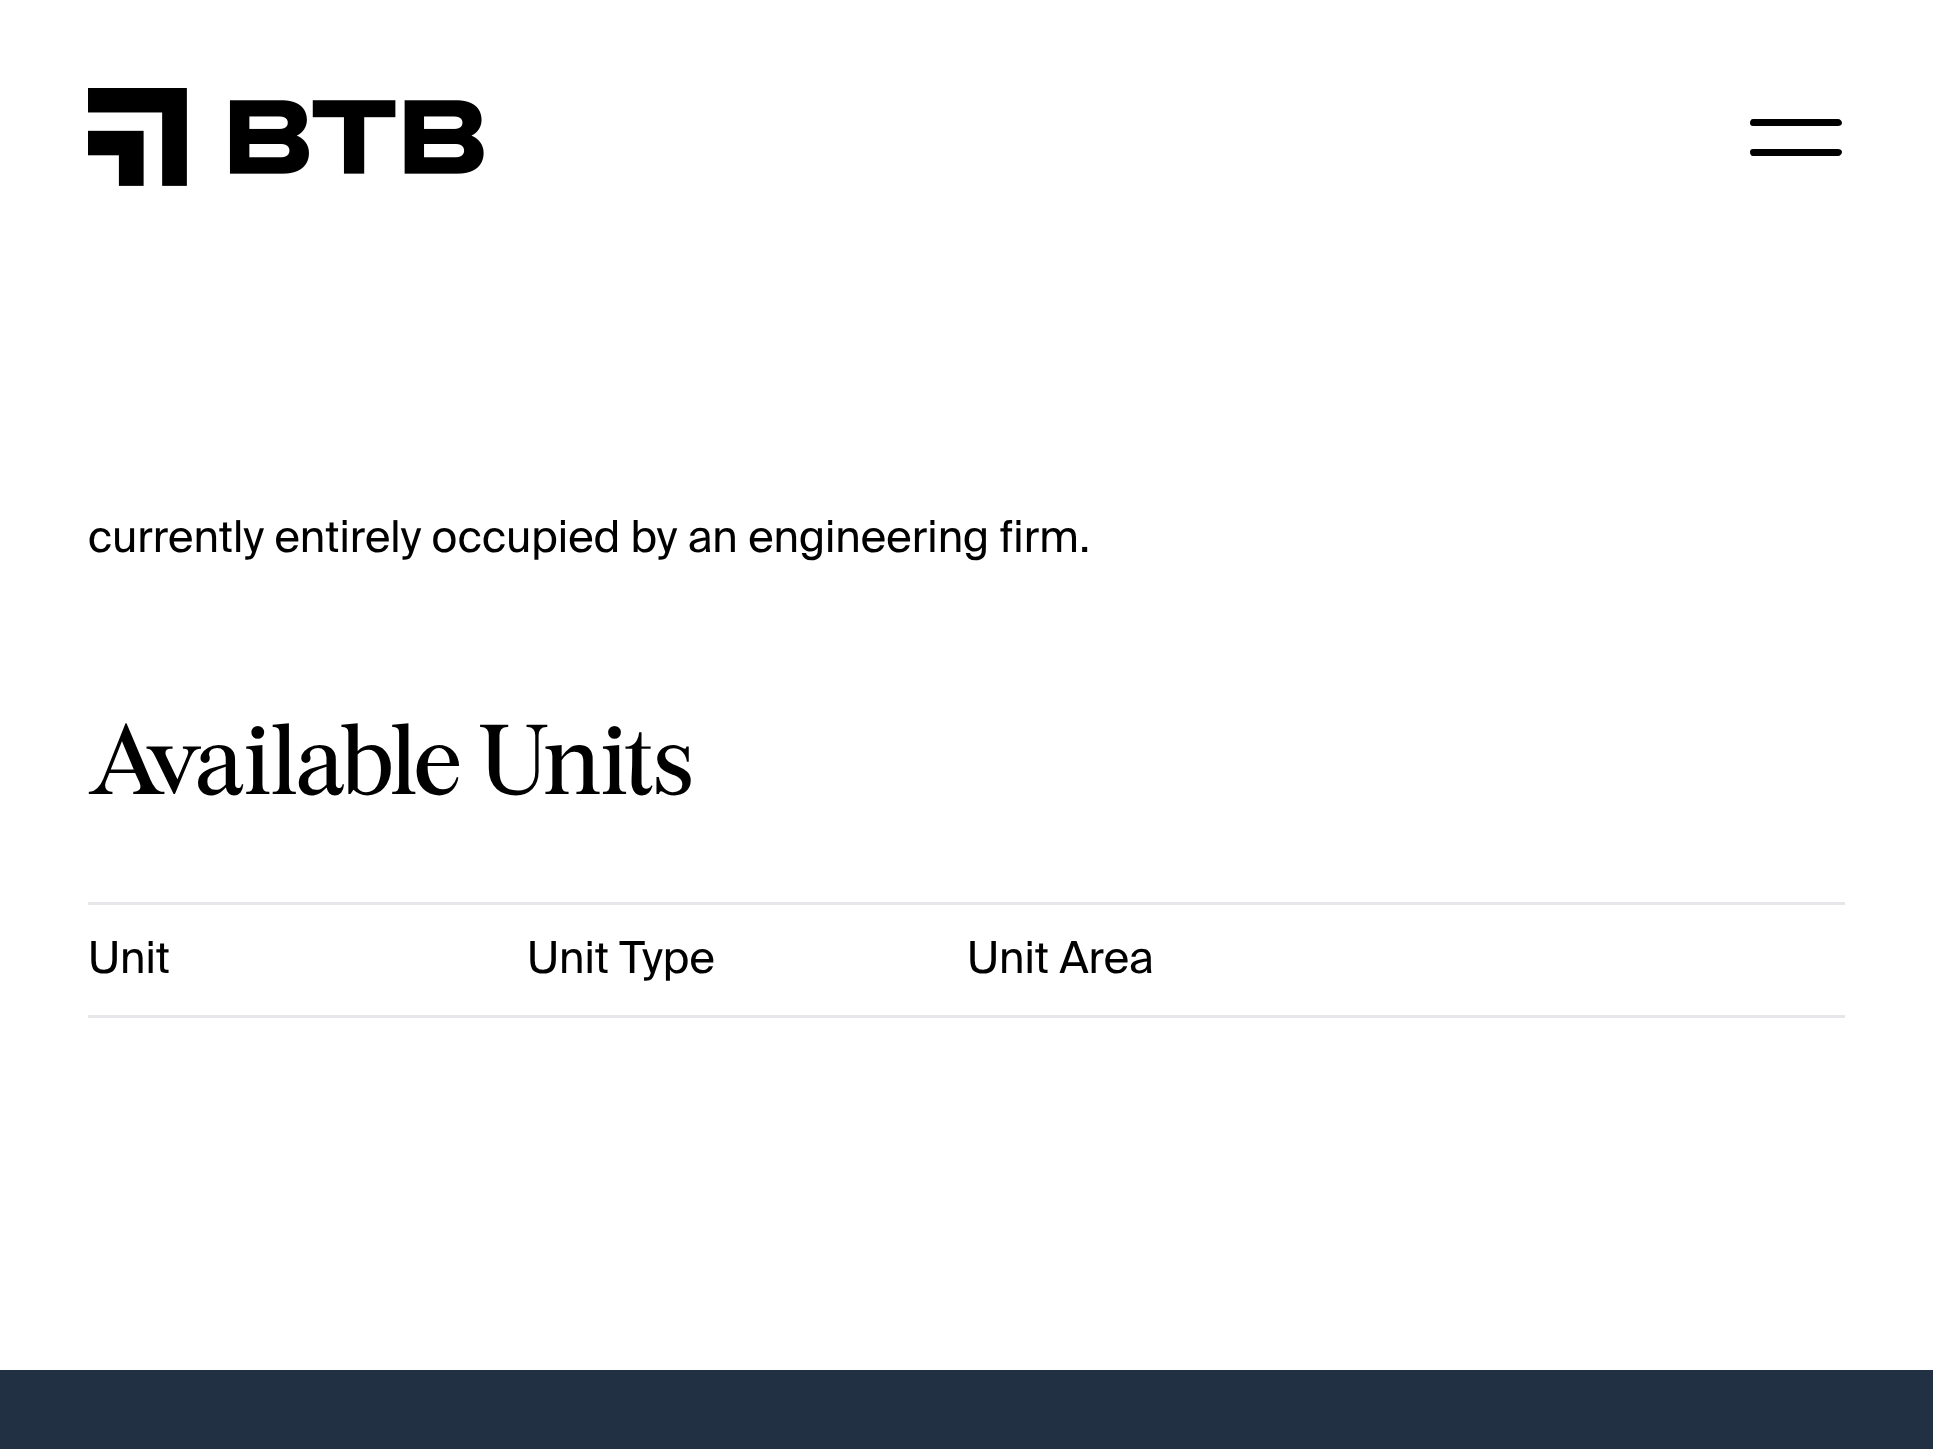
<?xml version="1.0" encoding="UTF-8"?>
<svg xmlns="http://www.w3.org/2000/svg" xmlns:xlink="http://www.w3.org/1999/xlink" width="1933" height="1449">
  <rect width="100%" height="100%" fill="#ffffff" />
  <image x="88" y="88" width="396" height="98" xlink:href="image1.png" />
  <path d="M 1842 152 c 0 -2 -2 -3 -4 -3 h -85 c -2 0 -3 1 -3 3 c 0 2 1 4 3 4 h 85 c 2 0 4 -2 4 -4 z m 0 -29 c 0 -2 -2 -4 -4 -4 h -85 c -2 0 -3 2 -3 4 c 0 2 1 3 3 3 h 85 c 2 0 4 -1 4 -3 z" fill="#000000" />
  <rect x="88" y="902" width="1757" height="3" fill="#e5e7eb" />
  <rect x="88" y="1015" width="1757" height="3" fill="#e5e7eb" />
  <rect y="1370" width="1933" height="79" fill="#213042" />
  <text x="88" y="552" style="font-family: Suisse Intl; font-size: 44px; fill: #000000">currently entirely occupied by an engineering firm.</text>
  <text x="88" y="794" style="font-family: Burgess; font-size: 99px; fill: #000000">Available Units</text>
  <text x="88" y="973" style="font-family: Suisse Intl; font-size: 44px; fill: #000000">Unit</text>
  <text x="527" y="973" style="font-family: Suisse Intl; font-size: 44px; fill: #000000">Unit Type</text>
  <text x="967" y="973" style="font-family: Suisse Intl; font-size: 44px; fill: #000000">Unit Area</text>
</svg>
